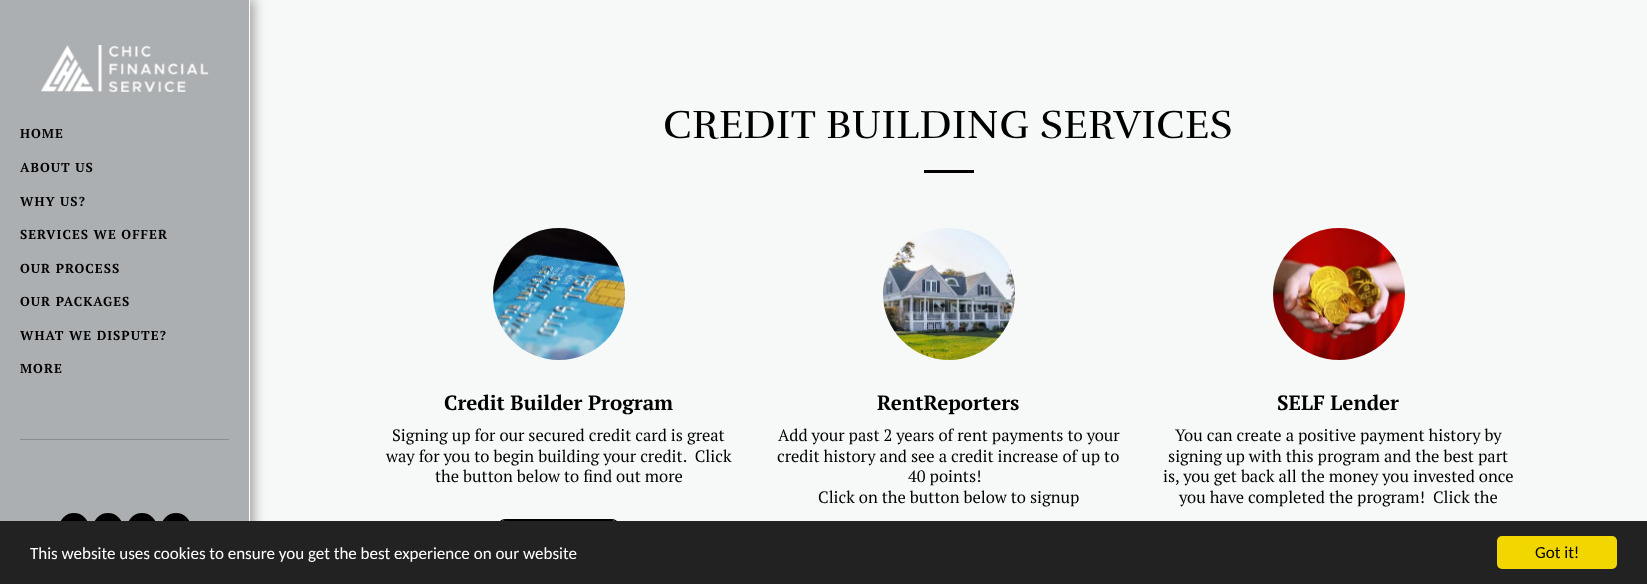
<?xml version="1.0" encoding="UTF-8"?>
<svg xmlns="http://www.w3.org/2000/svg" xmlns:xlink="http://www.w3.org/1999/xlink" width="1647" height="584">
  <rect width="100%" height="100%" fill="#f7f9f8" />
  <rect y="-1" width="254" height="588" fill="#000000" fill-opacity="0.35" filter="blur(6px)" />
  <rect width="249" height="521" fill="#acafb1" />
  <rect x="249" width="1" height="521" fill="#ffffff" />
  <image x="41" y="45" width="168" height="47" xlink:href="image1.png" />
  <rect x="20" y="439" width="209" height="1" fill="#8a8c8e" />
  <circle cx="74" cy="528" r="15" fill="#000000" />
  <circle cx="108" cy="528" r="15" fill="#000000" />
  <circle cx="142" cy="528" r="15" fill="#000000" />
  <circle cx="176" cy="528" r="15" fill="#000000" />
  <rect x="924" y="170" width="50" height="3" fill="#000000" />
  <image x="493" y="228" width="132" height="132" xlink:href="image2.png" />
  <path d="M 505 520 h 107 c 4 0 7 3 7 7 v 37 c 0 3 -3 5 -7 5 h -107 c -4 0 -7 -2 -7 -5 v -37 c 0 -4 3 -7 7 -7 z" fill="#000000" />
  <rect x="497.5" y="519.5" width="122" height="52" rx="7.5" fill="none" stroke="#000000" />
  <image x="883" y="228" width="132" height="132" xlink:href="image3.png" />
  <image x="1273" y="228" width="132" height="132" xlink:href="image4.png" />
  <rect y="521" width="1647" height="63" fill="#222222" />
  <rect x="1497" y="536" width="120" height="33" rx="5" fill="#f1d600" />
  <text x="20" y="138" style="font-family: PT Serif; font-size: 13px; font-weight: bold; letter-spacing: 1px; fill: #000000">HOME</text>
  <text x="20" y="172" style="font-family: PT Serif; font-size: 13px; font-weight: bold; letter-spacing: 1px; fill: #000000">ABOUT US</text>
  <text x="20" y="206" style="font-family: PT Serif; font-size: 13px; font-weight: bold; letter-spacing: 1px; fill: #000000">WHY US?</text>
  <text x="20" y="239" style="font-family: PT Serif; font-size: 13px; font-weight: bold; letter-spacing: 1px; fill: #000000">SERVICES WE OFFER</text>
  <text x="20" y="273" style="font-family: PT Serif; font-size: 13px; font-weight: bold; letter-spacing: 1px; fill: #000000">OUR PROCESS</text>
  <text x="20" y="306" style="font-family: PT Serif; font-size: 13px; font-weight: bold; letter-spacing: 1px; fill: #000000">OUR PACKAGES</text>
  <text x="20" y="340" style="font-family: PT Serif; font-size: 13px; font-weight: bold; letter-spacing: 1px; fill: #000000">WHAT WE DISPUTE?</text>
  <text x="20" y="373" style="font-family: PT Serif; font-size: 13px; font-weight: bold; letter-spacing: 1px; fill: #000000">MORE</text>
  <text x="663" y="138" style="font-family: Rufina; font-size: 40.25px; letter-spacing: 0.5px; fill: #000000">CREDIT BUILDING SERVICES</text>
  <text x="444" y="410" style="font-family: PT Serif; font-size: 20.6px; font-weight: bold; fill: #000000">Credit Builder Program</text>
  <text x="392" y="441" style="font-family: PT Serif; font-size: 16.5px; fill: #000000">Signing up for our secured credit card is great</text>
  <text x="386" y="462" style="font-family: PT Serif; font-size: 16.5px; fill: #000000" xml:space="preserve">way for you to begin building your credit.  Click</text>
  <text x="435" y="482" style="font-family: PT Serif; font-size: 16.5px; fill: #000000">the button below to find out more</text>
  <text x="877" y="410" style="font-family: PT Serif; font-size: 20.6px; font-weight: bold; fill: #000000">RentReporters</text>
  <text x="778" y="441" style="font-family: PT Serif; font-size: 16.5px; fill: #000000">Add your past 2 years of rent payments to your</text>
  <text x="777" y="462" style="font-family: PT Serif; font-size: 16.5px; fill: #000000">credit history and see a credit increase of up to</text>
  <text x="908" y="482" style="font-family: PT Serif; font-size: 16.5px; fill: #000000">40 points!</text>
  <text x="818" y="503" style="font-family: PT Serif; font-size: 16.5px; fill: #000000">Click on the button below to signup</text>
  <text x="1277" y="410" style="font-family: PT Serif; font-size: 20.6px; font-weight: bold; fill: #000000">SELF Lender</text>
  <text x="1175" y="441" style="font-family: PT Serif; font-size: 16.5px; fill: #000000">You can create a positive payment history by</text>
  <text x="1168" y="462" style="font-family: PT Serif; font-size: 16.5px; fill: #000000">signing up with this program and the best part</text>
  <text x="1163" y="482" style="font-family: PT Serif; font-size: 16.5px; fill: #000000">is, you get back all the money you invested once</text>
  <text x="1179" y="503" style="font-family: PT Serif; font-size: 16.5px; fill: #000000" xml:space="preserve">you have completed the program!  Click the</text>
  <text x="30" y="559" style="font-family: Carlito; font-size: 17px; fill: #ffffff">This website uses cookies to ensure you get the best experience on our website</text>
  <text x="1535" y="558" style="font-family: Carlito; font-size: 17px; fill: #000000">Got it!</text>
</svg>
